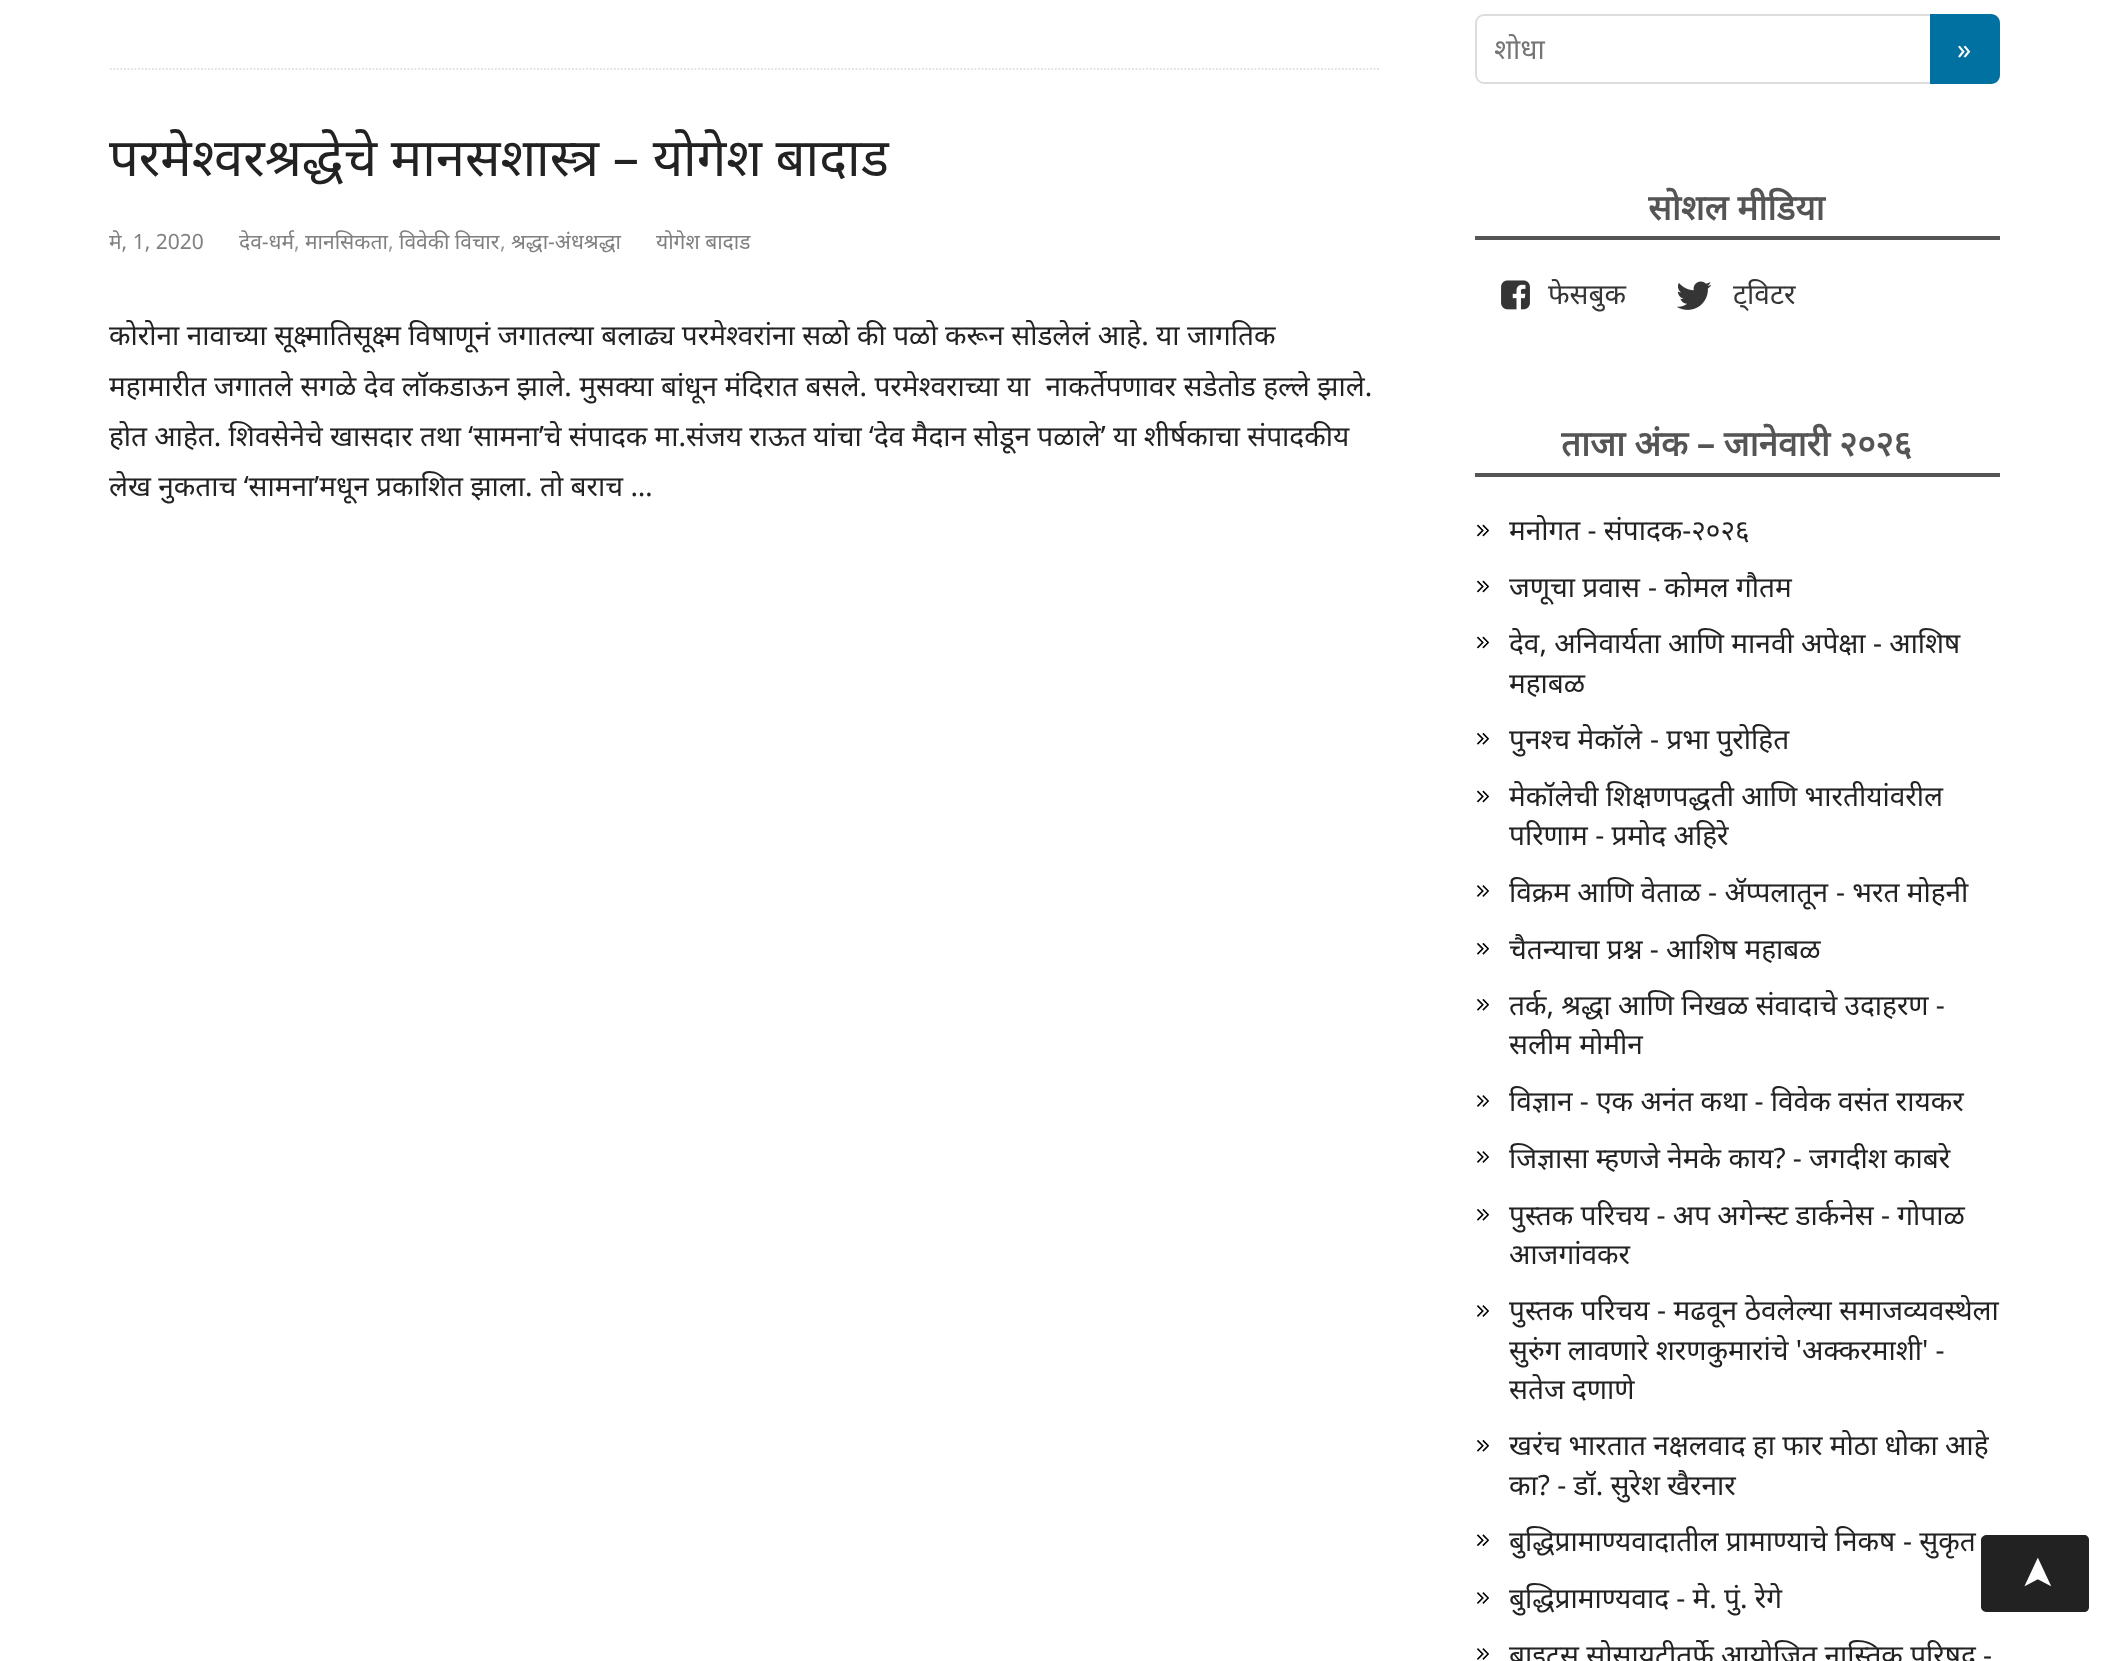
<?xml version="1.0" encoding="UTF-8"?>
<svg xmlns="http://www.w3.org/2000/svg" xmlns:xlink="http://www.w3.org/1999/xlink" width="2108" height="1661">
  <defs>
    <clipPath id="clip1"><rect x="1495" y="30" width="472" height="38" /></clipPath>
  </defs>
  <rect width="100%" height="100%" fill="#ffffff" />
  <path d="M 110 69 h 1269" fill="none" stroke="#e2e2e2" stroke-width="1.8" stroke-dasharray="1.75 1.75" />
  <rect x="1476" y="15" width="509" height="68" rx="8" fill="none" stroke="#dddddd" stroke-width="2" />
  <path d="M 1930 14 h 61 c 5 0 9 4 9 9 v 52 c 0 5 -4 9 -9 9 h -61 z" fill="#0071a1" />
  <rect x="1475" y="236" width="525" height="4" fill="#555555" />
  <image x="1501" y="280" width="29" height="30" xlink:href="image1.png" />
  <image x="1677" y="281" width="35" height="29" xlink:href="image2.png" />
  <rect x="1475" y="473" width="525" height="4" fill="#555555" />
  <image x="1477" y="524" width="12" height="13" xlink:href="image3.png" />
  <image x="1477" y="580" width="12" height="13" xlink:href="image3.png" />
  <image x="1477" y="636" width="12" height="13" xlink:href="image3.png" />
  <image x="1477" y="733" width="12" height="12" xlink:href="image4.png" />
  <image x="1477" y="790" width="12" height="13" xlink:href="image3.png" />
  <image x="1477" y="885" width="12" height="12" xlink:href="image5.png" />
  <image x="1477" y="943" width="12" height="12" xlink:href="image4.png" />
  <image x="1477" y="999" width="12" height="12" xlink:href="image4.png" />
  <image x="1477" y="1095" width="12" height="12" xlink:href="image5.png" />
  <image x="1477" y="1151" width="12" height="12" xlink:href="image5.png" />
  <image x="1477" y="1209" width="12" height="12" xlink:href="image4.png" />
  <image x="1477" y="1305" width="12" height="12" xlink:href="image5.png" />
  <image x="1477" y="1440" width="12" height="12" xlink:href="image4.png" />
  <image x="1477" y="1534" width="12" height="12" xlink:href="image6.png" />
  <image x="1477" y="1592" width="12" height="12" xlink:href="image5.png" />
  <image x="1477" y="1648" width="12" height="12" xlink:href="image5.png" />
  <path d="M 1981 1607 v -67 c 0 -3 3 -5 6 -5 h 97 c 3 0 5 2 5 5 v 67 c 0 3 -2 5 -5 5 h -97 c -3 0 -6 -2 -6 -5 z" fill="#222222" />
  <text x="109" y="176" style="font-family: Noto Sans; font-size: 52.5px; fill: #222222">परमेश्वरश्रद्धेचे मानसशास्त्र – योगेश बादाड</text>
  <text x="109" y="249" style="font-family: Noto Sans; font-size: 21px; fill: #808080">मे, 1, 2020</text>
  <text x="239" y="249" style="font-family: Noto Sans; font-size: 21px; fill: #808080">देव-धर्म</text>
  <text x="294" y="249" style="font-family: Noto Sans; font-size: 21px; fill: #999999">,</text>
  <text x="305" y="249" style="font-family: Noto Sans; font-size: 21px; fill: #808080">मानसिकता</text>
  <text x="388" y="249" style="font-family: Noto Sans; font-size: 21px; fill: #999999">,</text>
  <text x="399" y="249" style="font-family: Noto Sans; font-size: 21px; fill: #808080">विवेकी विचार</text>
  <text x="500" y="249" style="font-family: Noto Sans; font-size: 21px; fill: #999999">,</text>
  <text x="511" y="249" style="font-family: Noto Sans; font-size: 21px; fill: #808080">श्रद्धा-अंधश्रद्धा</text>
  <text x="656" y="249" style="font-family: Noto Sans; font-size: 21px; fill: #808080">योगेश बादाड</text>
  <text x="109" y="345" word-spacing="0.1" style="font-family: Noto Sans; font-size: 28px; fill: #222222">कोरोना नावाच्या सूक्ष्मातिसूक्ष्म विषाणूनं जगातल्या बलाढ्य परमेश्वरांना सळो की पळो करून सोडलेलं आहे. या जागतिक</text>
  <text x="109" y="396" word-spacing="0.25" style="font-family: Noto Sans; font-size: 28px; fill: #222222" xml:space="preserve">महामारीत जगातले सगळे देव लॉकडाऊन झाले. मुसक्या बांधून मंदिरात बसले. परमेश्वराच्या या  नाकर्तेपणावर सडेतोड हल्ले झाले.</text>
  <text x="109" y="446" style="font-family: Noto Sans; font-size: 28px; fill: #222222">होत आहेत. शिवसेनेचे खासदार तथा ‘सामना’चे संपादक मा.संजय राऊत यांचा ‘देव मैदान सोडून पळाले’ या शीर्षकाचा संपादकीय</text>
  <text x="109" y="496" word-spacing="0.1" style="font-family: Noto Sans; font-size: 28px; fill: #222222">लेख नुकताच ‘सामना’मधून प्रकाशित झाला. तो बराच …</text>
  <g clip-path="url(#clip1)">
    <text x="1494" y="59" style="font-family: Noto Sans; font-size: 28px; fill: #757575">शोधा</text>
  </g>
  <text x="1957" y="59" style="font-family: Noto Sans; font-size: 28px; fill: #ffffff">»</text>
  <text x="1648" y="220" style="font-family: Noto Sans; font-size: 35px; font-weight: bold; fill: #555555">सोशल मीडिया</text>
  <text x="1548" y="304" style="font-family: Noto Sans; font-size: 28px; fill: #353535">फेसबुक</text>
  <text x="1733" y="304" style="font-family: Noto Sans; font-size: 28px; fill: #353535">ट्विटर</text>
  <text x="1561" y="456" style="font-family: Noto Sans; font-size: 35px; font-weight: bold; fill: #555555">ताजा अंक – जानेवारी २०२६</text>
  <text x="1509" y="540" style="font-family: Noto Sans; font-size: 28px; fill: #222222">मनोगत - संपादक-२०२६</text>
  <text x="1509" y="597" style="font-family: Noto Sans; font-size: 28px; fill: #222222">जणूचा प्रवास</text>
  <text x="1648" y="597" style="font-family: Noto Sans; font-size: 28px; fill: #222222">- कोमल गौतम</text>
  <text x="1509" y="653" style="font-family: Noto Sans; font-size: 28px; fill: #222222">देव, अनिवार्यता आणि मानवी अपेक्षा - आशिष</text>
  <text x="1509" y="693" style="font-family: Noto Sans; font-size: 28px; fill: #222222">महाबळ</text>
  <text x="1509" y="749" style="font-family: Noto Sans; font-size: 28px; fill: #222222">पुनश्च मेकॉले</text>
  <text x="1650" y="749" style="font-family: Noto Sans; font-size: 28px; fill: #222222">- प्रभा पुरोहित</text>
  <text x="1509" y="806" style="font-family: Noto Sans; font-size: 28px; fill: #222222">मेकॉलेची शिक्षणपद्धती आणि भारतीयांवरील</text>
  <text x="1509" y="845" style="font-family: Noto Sans; font-size: 28px; fill: #222222">परिणाम - प्रमोद अहिरे</text>
  <text x="1509" y="902" style="font-family: Noto Sans; font-size: 28px; fill: #222222">विक्रम आणि वेताळ - ॲप्पलातून</text>
  <text x="1836" y="902" style="font-family: Noto Sans; font-size: 28px; fill: #222222">- भरत मोहनी</text>
  <text x="1509" y="959" style="font-family: Noto Sans; font-size: 28px; fill: #222222">चैतन्याचा प्रश्न - आशिष महाबळ</text>
  <text x="1509" y="1015" style="font-family: Noto Sans; font-size: 28px; fill: #222222">तर्क, श्रद्धा आणि निखळ संवादाचे उदाहरण -</text>
  <text x="1509" y="1054" word-spacing="1" style="font-family: Noto Sans; font-size: 28px; fill: #222222">सलीम मोमीन</text>
  <text x="1509" y="1111" style="font-family: Noto Sans; font-size: 28px; fill: #222222">विज्ञान - एक अनंत कथा - विवेक वसंत रायकर</text>
  <text x="1509" y="1168" style="font-family: Noto Sans; font-size: 28px; fill: #222222">जिज्ञासा म्हणजे नेमके काय? - जगदीश काबरे</text>
  <text x="1509" y="1225" style="font-family: Noto Sans; font-size: 28px; fill: #222222">पुस्तक परिचय - अप अगेन्स्ट डार्कनेस - गोपाळ</text>
  <text x="1509" y="1264" style="font-family: Noto Sans; font-size: 28px; fill: #222222">आजगांवकर</text>
  <text x="1509" y="1320" word-spacing="0.25" style="font-family: Noto Sans; font-size: 28px; fill: #222222">पुस्तक परिचय - मढवून ठेवलेल्या समाजव्यवस्थेला</text>
  <text x="1509" y="1360" style="font-family: Noto Sans; font-size: 28px; fill: #222222">सुरुंग लावणारे शरणकुमारांचे 'अक्करमाशी' -</text>
  <text x="1509" y="1399" style="font-family: Noto Sans; font-size: 28px; fill: #222222">सतेज दणाणे</text>
  <text x="1509" y="1455" style="font-family: Noto Sans; font-size: 28px; fill: #222222">खरंच भारतात नक्षलवाद हा फार मोठा धोका आहे</text>
  <text x="1509" y="1495" style="font-family: Noto Sans; font-size: 28px; fill: #222222">का? - डॉ. सुरेश खैरनार</text>
  <text x="1509" y="1551" style="font-family: Noto Sans; font-size: 28px; fill: #222222">बुद्धिप्रामाण्यवादातील प्रामाण्याचे निकष</text>
  <text x="1903" y="1551" style="font-family: Noto Sans; font-size: 28px; fill: #222222">- सुकृत</text>
  <text x="1509" y="1608" style="font-family: Noto Sans; font-size: 28px; fill: #222222">बुद्धिप्रामाण्यवाद - मे. पुं. रेगे</text>
  <text x="1509" y="1665" style="font-family: Noto Sans; font-size: 28px; fill: #222222">ब्राइट्स सोसायटीतर्फे आयोजित नास्तिक परिषद -</text>
  <text x="2051" y="1591" transform="rotate(-90 2051 1591)" style="font-family: DejaVu Sans; font-size: 42px; fill: #ffffff">➤</text>
</svg>
